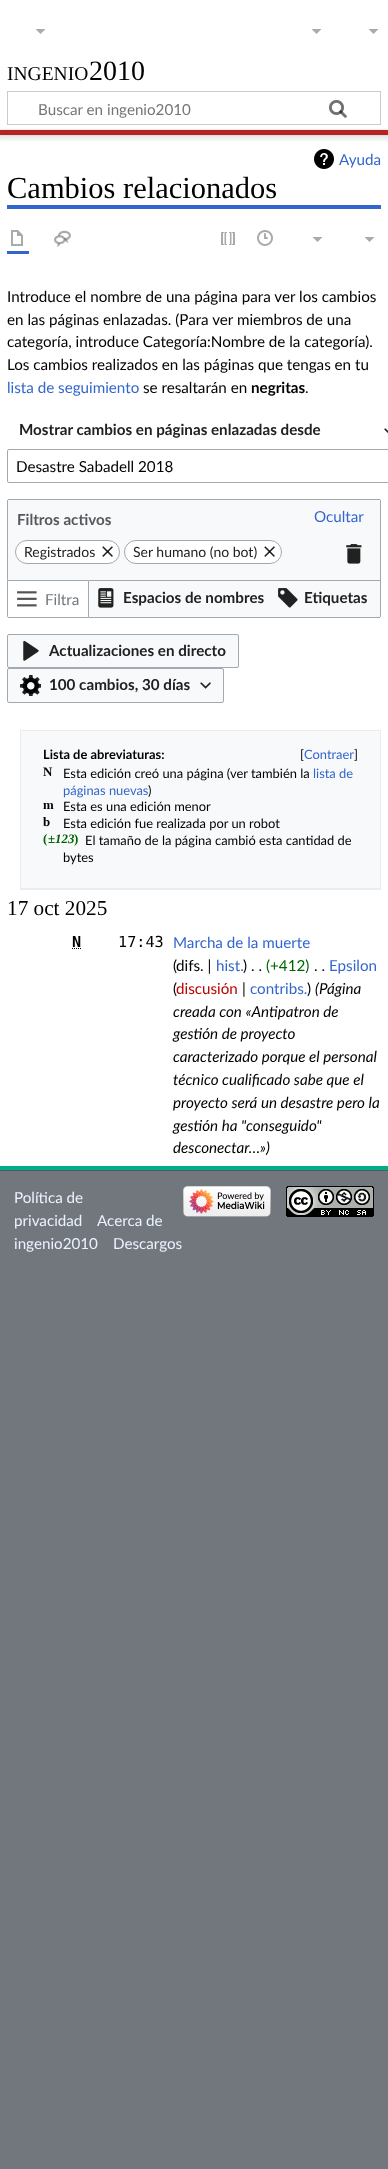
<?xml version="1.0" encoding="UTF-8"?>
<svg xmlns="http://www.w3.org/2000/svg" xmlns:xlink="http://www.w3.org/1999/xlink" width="388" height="2169">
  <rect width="100%" height="100%" fill="#72777d" />
  <rect width="388" height="130" fill="#ffffff" />
  <path d="M 378.5 29 l -5 5 l -5 -5 z" fill="#ababab" />
  <rect x="7.5" y="91.5" width="373" height="33" fill="none" stroke="#c8ccd1" />
  <image x="329" y="100" width="18" height="18" xlink:href="image1.png" />
  <image x="329" y="100" width="18" height="18" xlink:href="image2.png" />
  <rect y="135" width="388" height="1031" fill="#ffffff" />
  <rect y="130" width="388" height="5" fill="#000000" fill-opacity="0.2" filter="blur(1px)" />
  <rect x="-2" y="131" width="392" height="9" fill="#000000" fill-opacity="0.07" filter="blur(1.5px)" />
  <rect y="130" width="388" height="5" fill="#b32424" />
  <rect y="1166" width="388" height="4" fill="#00af89" />
  <path d="M 45.5 29 l -5 5 l -5 -5 z" fill="#ababab" />
  <path d="M 321.5 29 l -5 5 l -5 -5 z" fill="#ababab" />
  <image x="314" y="149" width="20" height="20" xlink:href="image3.png" />
  <rect x="7" y="205" width="374" height="4" fill="#3366cc" />
  <rect x="7" y="251" width="22" height="3" fill="#3366cc" />
  <image x="11" y="230" width="12" height="16" xlink:href="image4.png" />
  <image x="54" y="230" width="17" height="17" xlink:href="image5.png" />
  <image x="221" y="232" width="14" height="13" xlink:href="image6.png" />
  <image x="257" y="230" width="16" height="16" xlink:href="image7.png" />
  <path d="M 322.5 237 l -5 5 l -5 -5 z m 52 0 l -5 5 l -5 -5 z" fill="#ababab" />
  <image x="384" y="428" width="4" height="5" xlink:href="image8.png" />
  <rect x="7.5" y="449.5" width="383" height="33" rx="1.5" fill="none" stroke="#a2a9b1" />
  <rect x="7" y="499" width="374" height="119" fill="#f8f9fa" />
  <rect x="8" y="499" width="372" height="1" fill="#a2a9b1" />
  <rect x="380" y="500" width="1" height="80" fill="#a2a9b1" />
  <rect x="7" y="500" width="1" height="80" fill="#a2a9b1" />
  <rect x="15.5" y="540.5" width="104" height="23" rx="11.5" fill="#ffffff" stroke="#a2a9b1" />
  <image x="102" y="546" width="11" height="11" xlink:href="image9.png" />
  <rect x="124.5" y="540.5" width="157" height="23" rx="11.5" fill="#ffffff" stroke="#a2a9b1" />
  <image x="264" y="546" width="11" height="11" xlink:href="image9.png" />
  <image x="346" y="544" width="16" height="20" xlink:href="image10.png" />
  <path d="M 7.5 580.5 h 81 v 37 h -79.5 c -1 0 -1.5 -0.5 -1.5 -1.5 z" fill="#ffffff" stroke="#a2a9b1" />
  <image x="17" y="591" width="20" height="16" xlink:href="image11.png" />
  <rect x="89" y="580" width="292" height="1" fill="#a2a9b1" />
  <rect x="380" y="580" width="1" height="37" fill="#a2a9b1" />
  <rect x="89" y="617" width="291" height="1" fill="#a2a9b1" />
  <image x="98" y="588" width="16" height="20" xlink:href="image12.png" />
  <image x="278" y="588" width="20" height="20" xlink:href="image13.png" />
  <rect x="7.5" y="634.5" width="231" height="33" rx="1.5" fill="#f8f9fa" stroke="#a2a9b1" />
  <image x="23" y="640" width="16" height="21" xlink:href="image14.png" />
  <rect x="7.5" y="668.5" width="216" height="34" rx="1.5" fill="#f8f9fa" stroke="#a2a9b1" />
  <image x="20" y="675" width="21" height="21" xlink:href="image15.png" />
  <image x="200" y="682" width="11" height="7" xlink:href="image16.png" />
  <rect x="21" y="731" width="359" height="157" fill="#f8f9fa" />
  <rect x="20" y="730" width="361" height="1" fill="#eaecf0" />
  <rect x="380" y="730" width="1" height="160" fill="#eaecf0" />
  <rect x="20" y="888" width="361" height="2" fill="#eaecf0" />
  <rect x="20" y="730" width="1" height="160" fill="#eaecf0" />
  <path d="M 72 948.5 h 9.5" fill="none" stroke="#000000" stroke-dasharray="1 1" />
  <rect y="1170" width="388" height="1" fill="#54595d" />
  <image x="183" y="1186" width="88" height="31" xlink:href="image17.png" />
  <image x="286" y="1186" width="88" height="31" xlink:href="image18.png" />
  <text x="7" y="80" style="font-family: Liberation Serif; font-size: 19.5px; fill: #000000">INGENIO</text>
  <text x="89" y="80" style="font-family: Liberation Serif; font-size: 28px; fill: #000000">2010</text>
  <text x="38" y="115" style="font-family: Lato; font-size: 15.2px; fill: #757575">Buscar en ingenio2010</text>
  <text x="339" y="165" style="font-family: Lato; font-size: 15.2px; fill: #3366cc">Ayuda</text>
  <text x="7" y="198" style="font-family: Liberation Serif; font-size: 30.5px; fill: #000000">Cambios relacionados</text>
  <text x="7" y="302" style="font-family: Lato; font-size: 15.2px; fill: #000000">Introduce el nombre de una página para ver los cambios</text>
  <text x="7" y="325" style="font-family: Lato; font-size: 15.2px; fill: #000000">en las páginas enlazadas. (Para ver miembros de una</text>
  <text x="7" y="347" style="font-family: Lato; font-size: 15.2px; fill: #000000">categoría, introduce Categoría:Nombre de la categoría).</text>
  <text x="7" y="370" style="font-family: Lato; font-size: 15.2px; fill: #000000">Los cambios realizados en las páginas que tengas en tu</text>
  <text x="7" y="393" style="font-family: Lato; font-size: 15.2px; fill: #3366cc">lista de seguimiento</text>
  <text x="143" y="393" style="font-family: Lato; font-size: 15.2px; fill: #000000">se resaltarán en</text>
  <text x="251" y="393" style="font-family: Lato; font-size: 15.2px; font-weight: bold; fill: #000000">negritas</text>
  <text x="305" y="393" style="font-family: Lato; font-size: 15.2px; fill: #000000">.</text>
  <text x="19" y="435" style="font-family: Lato; font-size: 15.2px; font-weight: bold; fill: #202122">Mostrar cambios en páginas enlazadas desde</text>
  <text x="16" y="472" style="font-family: Lato; font-size: 15.2px; fill: #000000">Desastre Sabadell 2018</text>
  <text x="17" y="525" style="font-family: Lato; font-size: 15.2px; font-weight: bold; fill: #54595d">Filtros activos</text>
  <text x="314" y="522" style="font-family: Lato; font-size: 15.2px; fill: #3366cc">Ocultar</text>
  <text x="24" y="557" style="font-family: Lato; font-size: 14px; fill: #202122">Registrados</text>
  <text x="133" y="557" style="font-family: Lato; font-size: 14px; fill: #202122">Ser humano (no bot)</text>
  <text x="45" y="605" style="font-family: Lato; font-size: 15.2px; fill: #72777d">Filtra</text>
  <text x="123" y="603" style="font-family: Lato; font-size: 15.2px; font-weight: bold; fill: #202122">Espacios de nombres</text>
  <text x="304" y="603" style="font-family: Lato; font-size: 15.2px; font-weight: bold; fill: #202122">Etiquetas</text>
  <text x="49" y="656" style="font-family: Lato; font-size: 15.2px; font-weight: bold; fill: #202122">Actualizaciones en directo</text>
  <text x="49" y="690" style="font-family: Lato; font-size: 15.2px; font-weight: bold; fill: #202122">100 cambios, 30 días</text>
  <text x="43" y="759" style="font-family: Lato; font-size: 12.9px; font-weight: bold; fill: #000000">Lista de abreviaturas:</text>
  <text x="300" y="759" style="font-family: Lato; font-size: 12.9px; fill: #000000">[</text>
  <text x="304" y="759" style="font-family: Lato; font-size: 12.9px; fill: #3366cc">Contraer</text>
  <text x="354" y="759" style="font-family: Lato; font-size: 12.9px; fill: #000000">]</text>
  <text x="43" y="776" style="font-family: Liberation Serif; font-size: 12.9px; font-weight: bold; fill: #000000">N</text>
  <text x="63" y="778" style="font-family: Lato; font-size: 12.9px; fill: #000000">Esta edición creó una página (ver también la</text>
  <text x="313" y="778" style="font-family: Lato; font-size: 12.9px; fill: #3366cc">lista de</text>
  <text x="63" y="795" style="font-family: Lato; font-size: 12.9px; fill: #3366cc">páginas nuevas</text>
  <text x="148" y="795" style="font-family: Lato; font-size: 12.9px; fill: #000000">)</text>
  <text x="43" y="809" style="font-family: Liberation Serif; font-size: 12.9px; font-weight: bold; fill: #000000">m</text>
  <text x="63" y="811" style="font-family: Lato; font-size: 12.9px; fill: #000000">Esta es una edición menor</text>
  <text x="43" y="826" style="font-family: Liberation Serif; font-size: 12.9px; font-weight: bold; fill: #000000">b</text>
  <text x="63" y="828" style="font-family: Lato; font-size: 12.9px; fill: #000000">Esta edición fue realizada por un robot</text>
  <text x="43" y="843" style="font-family: Liberation Serif; font-size: 12.9px; font-weight: bold; fill: #006400">(</text>
  <text x="48" y="843" style="font-family: Liberation Serif; font-size: 12.9px; font-weight: bold; font-style: italic; fill: #006400">±123</text>
  <text x="74" y="843" style="font-family: Liberation Serif; font-size: 12.9px; font-weight: bold; fill: #006400">)</text>
  <text x="85" y="845" style="font-family: Lato; font-size: 12.9px; fill: #000000">El tamaño de la página cambió esta cantidad de</text>
  <text x="63" y="862" style="font-family: Lato; font-size: 12.9px; fill: #000000">bytes</text>
  <text x="7" y="915" style="font-family: Liberation Serif; font-size: 21.25px; fill: #000000">17 oct 2025</text>
  <text x="72" y="947" style="font-family: DejaVu Sans Mono; font-size: 15.2px; font-weight: bold; fill: #000000">N</text>
  <text x="118" y="947" style="font-family: DejaVu Sans Mono; font-size: 15.2px; fill: #000000">17:43</text>
  <text x="173" y="948" style="font-family: Lato; font-size: 15.2px; fill: #3366cc">Marcha de la muerte</text>
  <text x="173" y="971" style="font-family: Lato; font-size: 15.2px; fill: #000000">(</text>
  <text x="176" y="971" style="font-family: Lato; font-size: 15.2px; fill: #000000">difs. |</text>
  <text x="216" y="971" style="font-family: Lato; font-size: 15.2px; fill: #3366cc">hist.</text>
  <text x="243" y="971" style="font-family: Lato; font-size: 15.2px; fill: #000000">) . .</text>
  <text x="266" y="971" style="font-family: Lato; font-size: 15.2px; fill: #006400">(+412)</text>
  <text x="314" y="971" style="font-family: Lato; font-size: 15.2px; fill: #000000">. .</text>
  <text x="329" y="971" style="font-family: Lato; font-size: 15.2px; fill: #3366cc">Epsilon</text>
  <text x="173" y="994" style="font-family: Lato; font-size: 15.2px; fill: #000000">(</text>
  <text x="176" y="994" style="font-family: Lato; font-size: 15.2px; fill: #ba0000">discusión</text>
  <text x="242" y="994" style="font-family: Lato; font-size: 15.2px; fill: #000000">|</text>
  <text x="250" y="994" style="font-family: Lato; font-size: 15.2px; fill: #3366cc">contribs.</text>
  <text x="307" y="994" style="font-family: Lato; font-size: 15.2px; fill: #000000">)</text>
  <text x="315" y="994" style="font-family: Lato; font-size: 15.2px; font-style: italic; fill: #000000">(Página</text>
  <text x="173" y="1017" style="font-family: Lato; font-size: 15.2px; font-style: italic; fill: #000000">creada con «Antipatron de</text>
  <text x="173" y="1039" style="font-family: Lato; font-size: 15.2px; font-style: italic; fill: #000000">gestión de proyecto</text>
  <text x="173" y="1062" style="font-family: Lato; font-size: 15.2px; font-style: italic; fill: #000000">caracterizado porque el personal</text>
  <text x="173" y="1085" style="font-family: Lato; font-size: 15.2px; font-style: italic; fill: #000000">técnico cualificado sabe que el</text>
  <text x="173" y="1108" style="font-family: Lato; font-size: 15.2px; font-style: italic; fill: #000000">proyecto será un desastre pero la</text>
  <text x="173" y="1131" style="font-family: Lato; font-size: 15.2px; font-style: italic; fill: #000000">gestión ha "conseguido"</text>
  <text x="173" y="1153" style="font-family: Lato; font-size: 15.2px; font-style: italic; fill: #000000">desconectar…»)</text>
  <text x="14" y="1203" style="font-family: Lato; font-size: 15.2px; fill: #eaf3ff">Política de</text>
  <text x="14" y="1226" style="font-family: Lato; font-size: 15.2px; fill: #eaf3ff">privacidad</text>
  <text x="97" y="1226" style="font-family: Lato; font-size: 15.2px; fill: #eaf3ff">Acerca de</text>
  <text x="14" y="1249" style="font-family: Lato; font-size: 15.2px; fill: #eaf3ff">ingenio2010</text>
  <text x="113" y="1249" style="font-family: Lato; font-size: 15.2px; fill: #eaf3ff">Descargos</text>
</svg>
